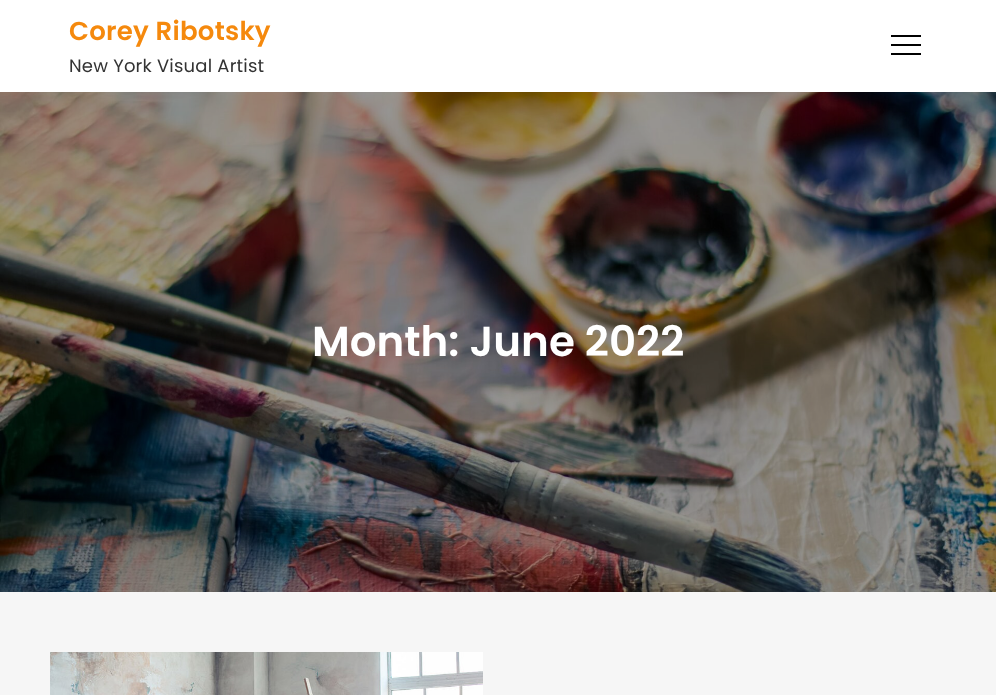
<?xml version="1.0" encoding="UTF-8"?>
<svg xmlns="http://www.w3.org/2000/svg" xmlns:xlink="http://www.w3.org/1999/xlink" width="996" height="695">
  <rect width="100%" height="100%" fill="#f6f6f6" />
  <rect width="996" height="92" fill="#ffffff" />
  <rect x="891" y="35" width="30" height="2" fill="#000000" />
  <rect x="891" y="44" width="30" height="2" fill="#000000" />
  <rect x="891" y="53" width="30" height="2" fill="#000000" />
  <image x="0" y="92" width="996" height="500" xlink:href="image1.png" />
  <image x="50" y="652" width="433" height="43" xlink:href="image2.png" />
  <text x="69" y="40" style="font-family: Poppins; font-size: 26px; font-weight: 600; letter-spacing: 0.25px; fill: #f5890d">Corey Ribotsky</text>
  <text x="69" y="72" style="font-family: Poppins; font-size: 18px; letter-spacing: 0.2px; fill: #333333">New York Visual Artist</text>
  <text x="312" y="356" style="font-family: Poppins; font-size: 42px; font-weight: 600; fill: #ffffff">Month: June 2022</text>
</svg>
